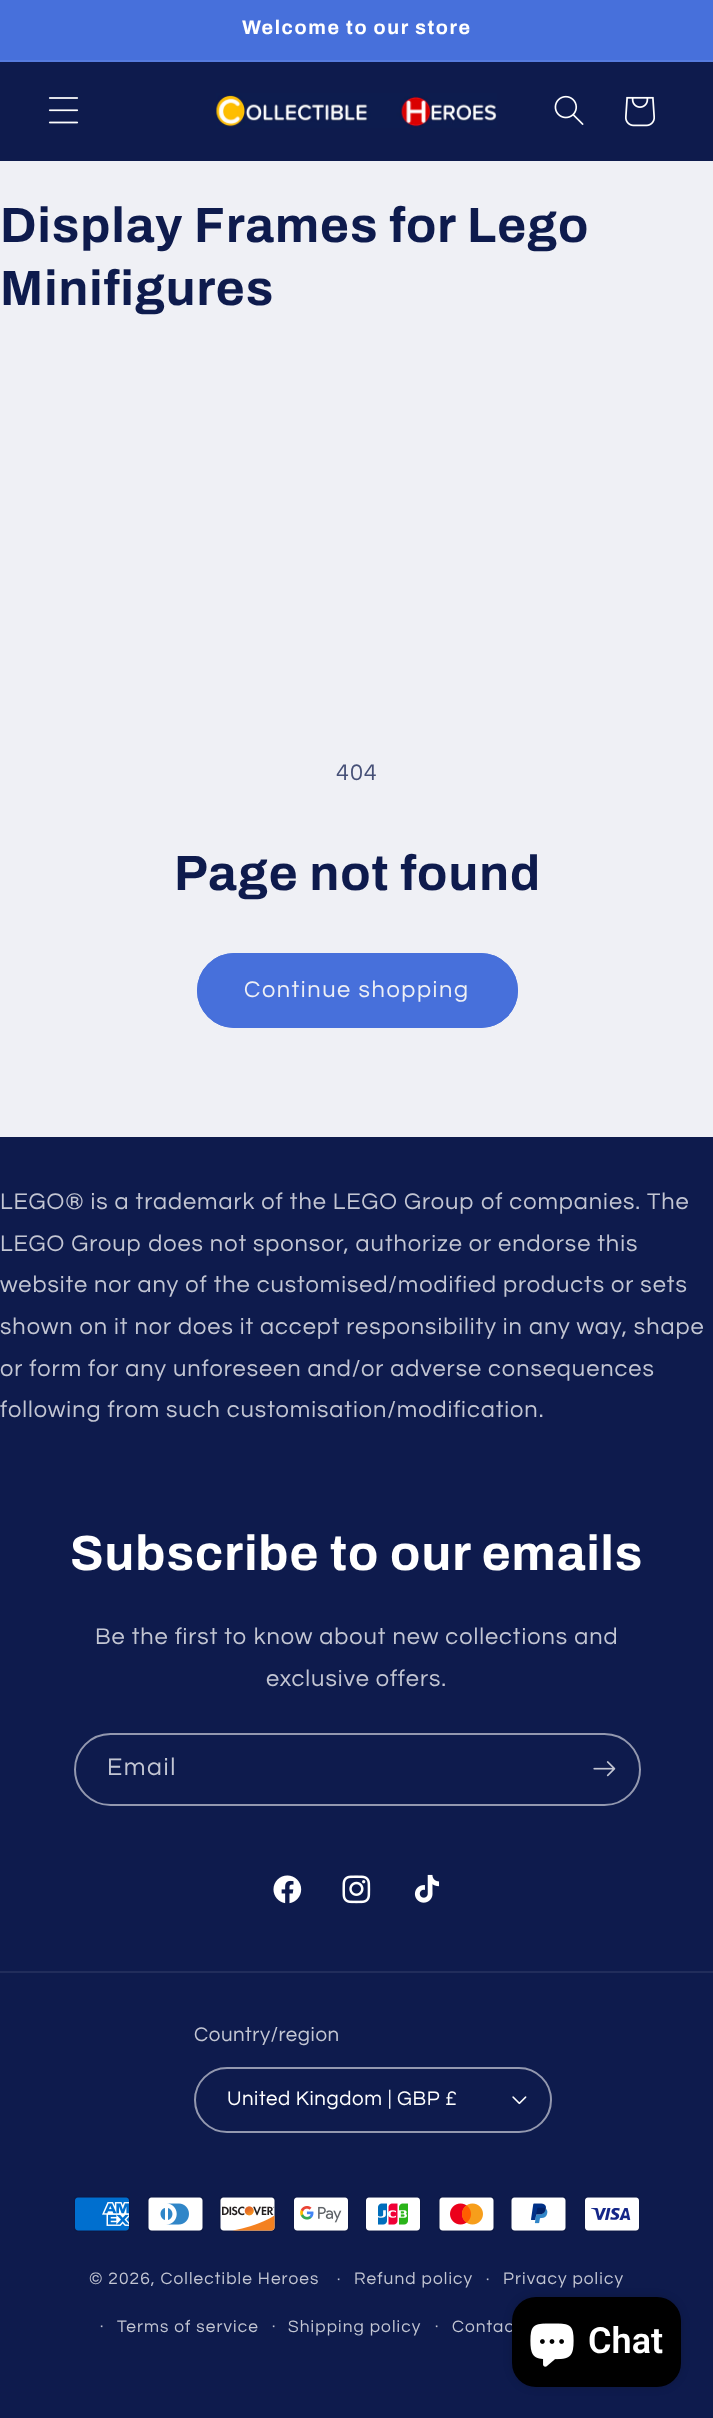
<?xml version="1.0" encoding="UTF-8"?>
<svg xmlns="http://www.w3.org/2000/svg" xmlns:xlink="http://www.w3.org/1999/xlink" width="713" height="2418">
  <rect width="100%" height="100%" fill="#eff0f5" />
  <rect width="713" height="60" fill="#4770db" />
  <rect y="60" width="713" height="2" fill="#567bde" />
  <rect y="62" width="713" height="99" fill="#0e1b4d" />
  <image x="48" y="97" width="31" height="27" xlink:href="image1.png" />
  <image x="216" y="93" width="281" height="35" xlink:href="image2.png" />
  <image x="554" y="95" width="30" height="30" xlink:href="image3.png" />
  <image x="625" y="96" width="30" height="31" xlink:href="image4.png" />
  <rect x="197" y="953" width="321" height="75" rx="37.5" fill="#4770db" />
  <rect x="198" y="954" width="319" height="73" rx="36.5" fill="none" stroke="#4770db" stroke-width="2" />
  <rect y="1137" width="713" height="354" fill="#0e1b4d" />
  <rect y="1491" width="713" height="927" fill="#0e1b4d" />
  <rect x="75" y="1734" width="565" height="71" rx="35.5" fill="none" stroke="#9398af" stroke-width="2" />
  <image x="593" y="1761" width="23" height="16" xlink:href="image5.png" />
  <image x="273" y="1875" width="29" height="29" xlink:href="image6.png" />
  <image x="342" y="1875" width="29" height="29" xlink:href="image7.png" />
  <image x="414" y="1874" width="26" height="29" xlink:href="image8.png" />
  <rect y="1971" width="713" height="2" fill="#212d5b" />
  <image x="512" y="2096" width="15" height="9" xlink:href="image9.png" />
  <rect x="195" y="2068" width="356" height="64" rx="32" fill="none" stroke="#9398af" stroke-width="2" />
  <image x="74" y="2196" width="56" height="36" xlink:href="image10.png" />
  <image x="147" y="2196" width="57" height="36" xlink:href="image11.png" />
  <image x="219" y="2196" width="57" height="36" xlink:href="image12.png" />
  <image x="293" y="2196" width="56" height="36" xlink:href="image13.png" />
  <image x="365" y="2196" width="56" height="36" xlink:href="image14.png" />
  <image x="438" y="2196" width="57" height="36" xlink:href="image15.png" />
  <image x="510" y="2196" width="57" height="36" xlink:href="image16.png" />
  <image x="584" y="2196" width="56" height="36" xlink:href="image17.png" />
  <rect x="512" y="2297" width="169" height="90" rx="24" fill="#000000" fill-opacity="0.15" filter="blur(4px)" />
  <text x="242" y="34" style="font-family: Archivo; font-size: 19.75px; font-weight: bold; letter-spacing: 1.6px; fill: #ffffff">Welcome to our store</text>
  <text x="0" y="242" style="font-family: Archivo; font-size: 49.5px; font-weight: bold; letter-spacing: 1px; fill: #0e1b4d">Display Frames for Lego</text>
  <text x="0" y="305" style="font-family: Archivo; font-size: 49.5px; font-weight: bold; letter-spacing: 1px; fill: #0e1b4d">Minifigures</text>
  <text x="336" y="780" style="font-family: Questrial; font-size: 23.6px; letter-spacing: 0.95px; fill: #465077">404</text>
  <text x="174" y="890" style="font-family: Archivo; font-size: 49.5px; font-weight: bold; letter-spacing: 1px; fill: #0e1b4d">Page not found</text>
  <text x="244" y="997" style="font-family: Questrial; font-size: 23.6px; letter-spacing: 1.6px; fill: #eff0f5">Continue shopping</text>
  <text x="0" y="1209" style="font-family: Questrial; font-size: 23.6px; letter-spacing: 0.95px; fill: #c3c6d3">LEGO® is a trademark of the LEGO Group of companies. The</text>
  <text x="0" y="1251" style="font-family: Questrial; font-size: 23.6px; letter-spacing: 0.95px; fill: #c3c6d3">LEGO Group does not sponsor, authorize or endorse this</text>
  <text x="0" y="1292" style="font-family: Questrial; font-size: 23.6px; letter-spacing: 0.95px; fill: #c3c6d3">website nor any of the customised/modified products or sets</text>
  <text x="0" y="1334" style="font-family: Questrial; font-size: 23.6px; letter-spacing: 0.95px; fill: #c3c6d3">shown on it nor does it accept responsibility in any way, shape</text>
  <text x="0" y="1376" style="font-family: Questrial; font-size: 23.6px; letter-spacing: 0.95px; fill: #c3c6d3">or form for any unforeseen and/or adverse consequences</text>
  <text x="0" y="1417" style="font-family: Questrial; font-size: 23.6px; letter-spacing: 0.95px; fill: #c3c6d3">following from such customisation/modification.</text>
  <text x="70" y="1570" style="font-family: Archivo; font-size: 49.5px; font-weight: bold; letter-spacing: 1px; fill: #ffffff">Subscribe to our emails</text>
  <text x="95" y="1644" style="font-family: Questrial; font-size: 23.6px; letter-spacing: 0.95px; fill: #c3c6d3">Be the first to know about new collections and</text>
  <text x="266" y="1686" style="font-family: Questrial; font-size: 23.6px; letter-spacing: 0.95px; fill: #c3c6d3">exclusive offers.</text>
  <text x="107" y="1775" style="font-family: Questrial; font-size: 25px; letter-spacing: 1.6px; fill: #c3c6d3">Email</text>
  <text x="194" y="2041" style="font-family: Questrial; font-size: 20.5px; letter-spacing: 0.6px; fill: #c3c6d3">Country/region</text>
  <text x="227" y="2105" style="font-family: Questrial; font-size: 20.5px; letter-spacing: 0.6px; fill: #ffffff">United Kingdom | GBP £</text>
  <text x="89" y="2284" style="font-family: Questrial; font-size: 17.3px; letter-spacing: 1.1px; fill: #c3c6d3">© 2026, Collectible Heroes</text>
  <text x="337" y="2284" style="font-family: Questrial; font-size: 16px; letter-spacing: 1.1px; fill: #c3c6d3">·</text>
  <text x="354" y="2284" style="font-family: Questrial; font-size: 17.3px; letter-spacing: 1.1px; fill: #c3c6d3">Refund policy</text>
  <text x="486" y="2284" style="font-family: Questrial; font-size: 16px; letter-spacing: 1.1px; fill: #c3c6d3">·</text>
  <text x="503" y="2284" style="font-family: Questrial; font-size: 17.3px; letter-spacing: 1.1px; fill: #c3c6d3">Privacy policy</text>
  <text x="100" y="2331" style="font-family: Questrial; font-size: 16px; letter-spacing: 1.1px; fill: #c3c6d3">·</text>
  <text x="117" y="2332" style="font-family: Questrial; font-size: 17.3px; letter-spacing: 1.1px; fill: #c3c6d3">Terms of service</text>
  <text x="272" y="2331" style="font-family: Questrial; font-size: 16px; letter-spacing: 1.1px; fill: #c3c6d3">·</text>
  <text x="288" y="2332" style="font-family: Questrial; font-size: 17.3px; letter-spacing: 1.1px; fill: #c3c6d3">Shipping policy</text>
  <text x="435" y="2331" style="font-family: Questrial; font-size: 16px; letter-spacing: 1.1px; fill: #c3c6d3">·</text>
  <text x="452" y="2332" style="font-family: Questrial; font-size: 17.3px; letter-spacing: 1.1px; fill: #c3c6d3">Contac</text>
  <rect x="512" y="2297" width="169" height="90" rx="24" fill="#000000" />
  <image x="530" y="2323" width="44" height="44" xlink:href="image18.png" />
  <text x="588" y="2353" style="font-family: Roboto; font-size: 36px; font-weight: 600; fill: #ffffff">Chat</text>
</svg>
